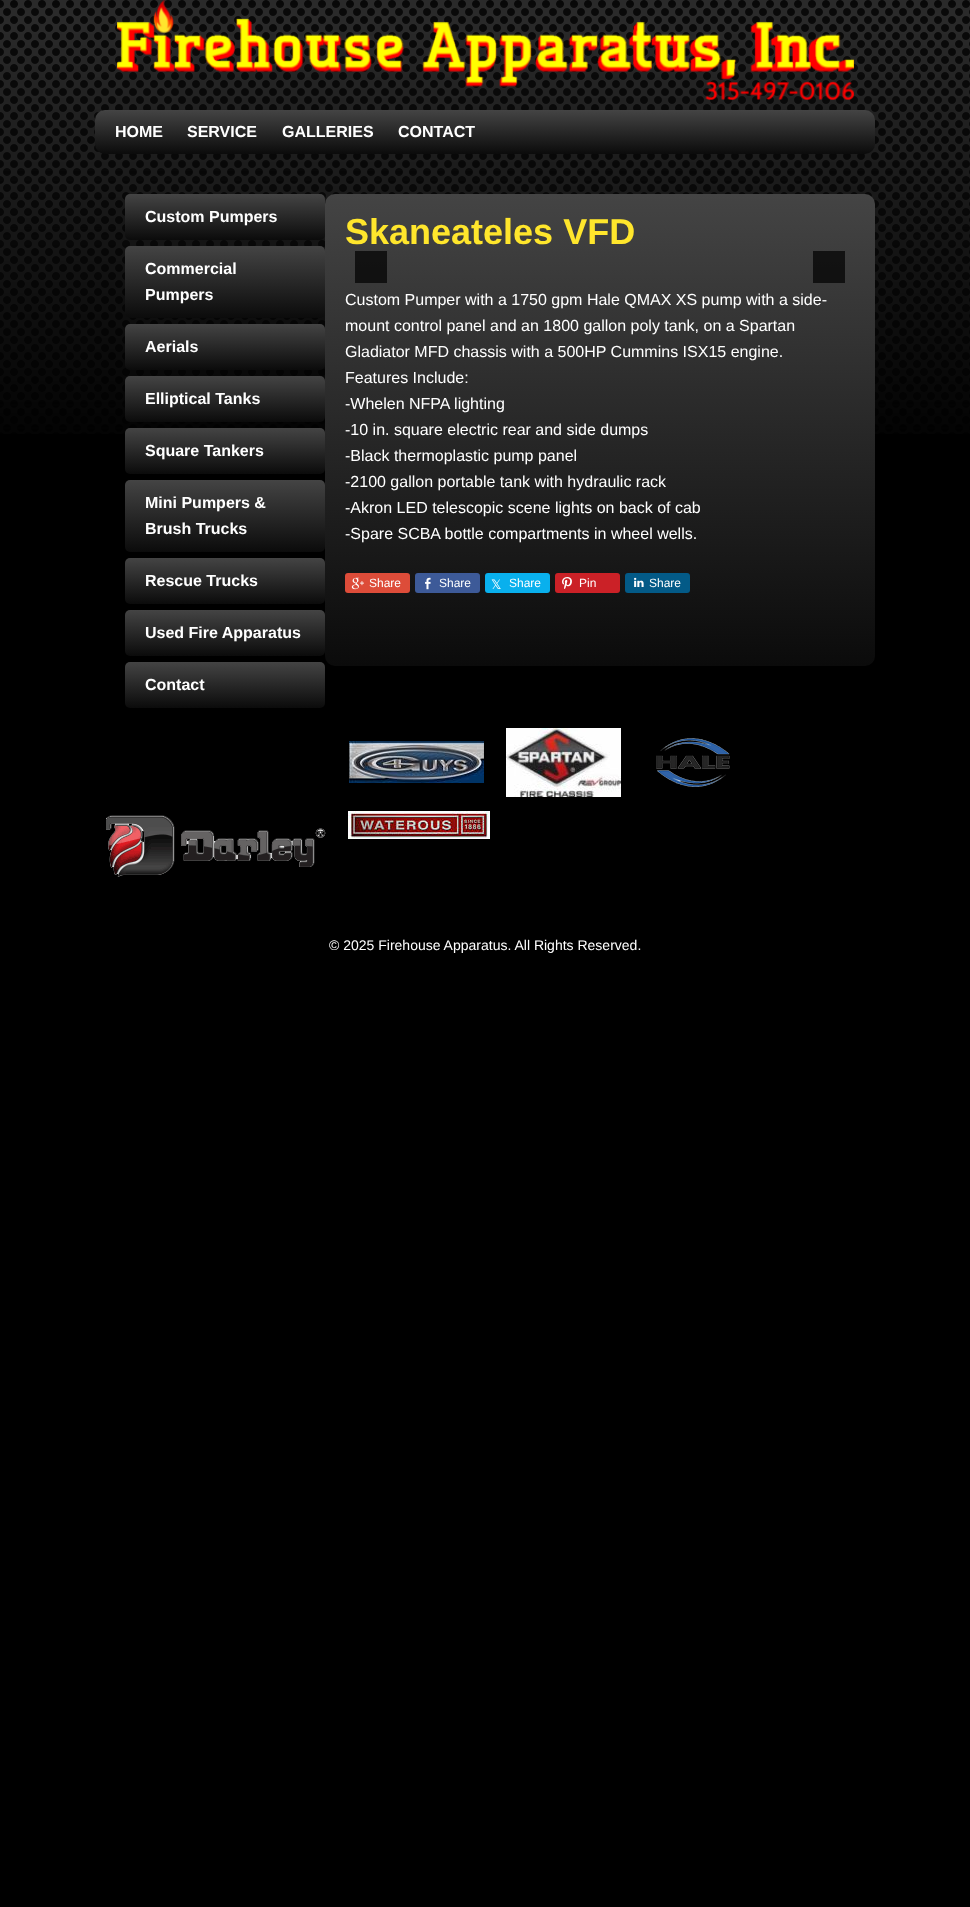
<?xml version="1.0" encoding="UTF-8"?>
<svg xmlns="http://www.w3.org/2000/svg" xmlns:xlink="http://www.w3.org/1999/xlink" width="970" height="1907">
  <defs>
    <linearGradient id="g1" gradientUnits="userSpaceOnUse" x1="485" y1="110" x2="485" y2="154"><stop offset="0" stop-color="#444444" /><stop offset="1" stop-color="#0b0b0b" /></linearGradient>
    <linearGradient id="g2" gradientUnits="userSpaceOnUse" x1="225" y1="194" x2="225" y2="240"><stop offset="0" stop-color="#444444" /><stop offset="1" stop-color="#0b0b0b" /></linearGradient>
    <linearGradient id="g3" gradientUnits="userSpaceOnUse" x1="225" y1="246" x2="225" y2="318"><stop offset="0" stop-color="#444444" /><stop offset="1" stop-color="#0b0b0b" /></linearGradient>
    <linearGradient id="g4" gradientUnits="userSpaceOnUse" x1="225" y1="324" x2="225" y2="370"><stop offset="0" stop-color="#444444" /><stop offset="1" stop-color="#0b0b0b" /></linearGradient>
    <linearGradient id="g5" gradientUnits="userSpaceOnUse" x1="225" y1="376" x2="225" y2="422"><stop offset="0" stop-color="#444444" /><stop offset="1" stop-color="#0b0b0b" /></linearGradient>
    <linearGradient id="g6" gradientUnits="userSpaceOnUse" x1="225" y1="428" x2="225" y2="474"><stop offset="0" stop-color="#444444" /><stop offset="1" stop-color="#0b0b0b" /></linearGradient>
    <linearGradient id="g7" gradientUnits="userSpaceOnUse" x1="225" y1="480" x2="225" y2="552"><stop offset="0" stop-color="#444444" /><stop offset="1" stop-color="#0b0b0b" /></linearGradient>
    <linearGradient id="g8" gradientUnits="userSpaceOnUse" x1="225" y1="558" x2="225" y2="604"><stop offset="0" stop-color="#444444" /><stop offset="1" stop-color="#0b0b0b" /></linearGradient>
    <linearGradient id="g9" gradientUnits="userSpaceOnUse" x1="225" y1="610" x2="225" y2="656"><stop offset="0" stop-color="#444444" /><stop offset="1" stop-color="#0b0b0b" /></linearGradient>
    <linearGradient id="g10" gradientUnits="userSpaceOnUse" x1="225" y1="662" x2="225" y2="708"><stop offset="0" stop-color="#444444" /><stop offset="1" stop-color="#0b0b0b" /></linearGradient>
    <linearGradient id="g11" gradientUnits="userSpaceOnUse" x1="600" y1="194" x2="600" y2="666"><stop offset="0" stop-color="#444444" /><stop offset="1" stop-color="#0b0b0b" /></linearGradient>
  </defs>
  <rect width="100%" height="100%" fill="#000000" />
  <image x="0" y="0" width="970" height="434" xlink:href="image1.png" />
  <image x="117" y="0" width="737" height="100" xlink:href="image2.png" />
  <rect x="95" y="110" width="780" height="44" rx="10" fill="url(#g1)" />
  <rect x="125" y="194" width="200" height="46" rx="5" fill="url(#g2)" />
  <rect x="125" y="246" width="200" height="72" rx="5" fill="url(#g3)" />
  <rect x="125" y="324" width="200" height="46" rx="5" fill="url(#g4)" />
  <rect x="125" y="376" width="200" height="46" rx="5" fill="url(#g5)" />
  <rect x="125" y="428" width="200" height="46" rx="5" fill="url(#g6)" />
  <rect x="125" y="480" width="200" height="72" rx="5" fill="url(#g7)" />
  <rect x="125" y="558" width="200" height="46" rx="5" fill="url(#g8)" />
  <rect x="125" y="610" width="200" height="46" rx="5" fill="url(#g9)" />
  <rect x="125" y="662" width="200" height="46" rx="5" fill="url(#g10)" />
  <rect x="325" y="194" width="550" height="472" rx="10" fill="url(#g11)" />
  <rect x="355" y="251" width="32" height="32" fill="#000000" fill-opacity="0.7" />
  <rect x="813" y="251" width="32" height="32" fill="#000000" fill-opacity="0.7" />
  <rect x="345" y="573" width="65" height="20" rx="3" fill="#dd4c39" />
  <image x="351" y="577" width="13" height="13" xlink:href="image3.png" />
  <rect x="415" y="573" width="65" height="20" rx="3" fill="#3d5a98" />
  <image x="425" y="577" width="6" height="13" xlink:href="image4.png" />
  <rect x="485" y="573" width="65" height="20" rx="3" fill="#09b0ed" />
  <rect x="555" y="573" width="65" height="20" rx="3" fill="#cb2127" />
  <image x="562" y="577" width="10" height="12" xlink:href="image5.png" />
  <rect x="625" y="573" width="65" height="20" rx="3" fill="#035a87" />
  <image x="634" y="577" width="10" height="10" xlink:href="image6.png" />
  <image x="349" y="741" width="135" height="42" xlink:href="image7.png" />
  <image x="506" y="728" width="115" height="69" xlink:href="image8.png" />
  <image x="656" y="738" width="74" height="49" xlink:href="image9.png" />
  <image x="106" y="815" width="220" height="62" xlink:href="image10.png" />
  <image x="348" y="811" width="142" height="28" xlink:href="image11.png" />
  <text x="115" y="137" style="font-family: Liberation Sans; font-size: 16px; font-weight: bold; fill: #ffffff">HOME</text>
  <text x="187" y="137" style="font-family: Liberation Sans; font-size: 16px; font-weight: bold; fill: #ffffff">SERVICE</text>
  <text x="282" y="137" style="font-family: Liberation Sans; font-size: 16px; font-weight: bold; fill: #ffffff">GALLERIES</text>
  <text x="398" y="137" style="font-family: Liberation Sans; font-size: 16px; font-weight: bold; fill: #ffffff">CONTACT</text>
  <text x="145" y="222" style="font-family: Liberation Sans; font-size: 16px; font-weight: bold; fill: #ffffff">Custom Pumpers</text>
  <text x="145" y="274" style="font-family: Liberation Sans; font-size: 16px; font-weight: bold; fill: #ffffff">Commercial</text>
  <text x="145" y="300" style="font-family: Liberation Sans; font-size: 16px; font-weight: bold; fill: #ffffff">Pumpers</text>
  <text x="145" y="352" style="font-family: Liberation Sans; font-size: 16px; font-weight: bold; fill: #ffffff">Aerials</text>
  <text x="145" y="404" style="font-family: Liberation Sans; font-size: 16px; font-weight: bold; fill: #ffffff">Elliptical Tanks</text>
  <text x="145" y="456" style="font-family: Liberation Sans; font-size: 16px; font-weight: bold; fill: #ffffff">Square Tankers</text>
  <text x="145" y="508" style="font-family: Liberation Sans; font-size: 16px; font-weight: bold; fill: #ffffff">Mini Pumpers &amp;</text>
  <text x="145" y="534" style="font-family: Liberation Sans; font-size: 16px; font-weight: bold; fill: #ffffff">Brush Trucks</text>
  <text x="145" y="586" style="font-family: Liberation Sans; font-size: 16px; font-weight: bold; fill: #ffffff">Rescue Trucks</text>
  <text x="145" y="638" style="font-family: Liberation Sans; font-size: 16px; font-weight: bold; fill: #ffffff">Used Fire Apparatus</text>
  <text x="145" y="690" style="font-family: Liberation Sans; font-size: 16px; font-weight: bold; fill: #ffffff">Contact</text>
  <text x="345" y="244" style="font-family: Liberation Sans; font-size: 36px; font-weight: bold; fill: #ffe62c">Skaneateles VFD</text>
  <text x="345" y="305" style="font-family: Liberation Sans; font-size: 16px; fill: #ffffff">Custom Pumper with a 1750 gpm Hale QMAX XS pump with a side-</text>
  <text x="345" y="331" style="font-family: Liberation Sans; font-size: 16px; fill: #ffffff">mount control panel and an 1800 gallon poly tank, on a Spartan</text>
  <text x="345" y="357" style="font-family: Liberation Sans; font-size: 16px; fill: #ffffff">Gladiator MFD chassis with a 500HP Cummins ISX15 engine.</text>
  <text x="345" y="383" style="font-family: Liberation Sans; font-size: 16px; fill: #ffffff">Features Include:</text>
  <text x="345" y="409" style="font-family: Liberation Sans; font-size: 16px; fill: #ffffff">-Whelen NFPA lighting</text>
  <text x="345" y="435" style="font-family: Liberation Sans; font-size: 16px; fill: #ffffff">-10 in. square electric rear and side dumps</text>
  <text x="345" y="461" style="font-family: Liberation Sans; font-size: 16px; fill: #ffffff">-Black thermoplastic pump panel</text>
  <text x="345" y="487" style="font-family: Liberation Sans; font-size: 16px; fill: #ffffff">-2100 gallon portable tank with hydraulic rack</text>
  <text x="345" y="513" style="font-family: Liberation Sans; font-size: 16px; fill: #ffffff">-Akron LED telescopic scene lights on back of cab</text>
  <text x="345" y="539" style="font-family: Liberation Sans; font-size: 16px; fill: #ffffff">-Spare SCBA bottle compartments in wheel wells.</text>
  <text x="369" y="587" style="font-family: Liberation Sans; font-size: 12px; fill: #ffffff">Share</text>
  <text x="439" y="587" style="font-family: Liberation Sans; font-size: 12px; fill: #ffffff">Share</text>
  <text x="491" y="589" style="font-family: DejaVu Sans; font-size: 13px; fill: #ffffff">𝕏</text>
  <text x="509" y="587" style="font-family: Liberation Sans; font-size: 12px; fill: #ffffff">Share</text>
  <text x="579" y="587" style="font-family: Liberation Sans; font-size: 12px; fill: #ffffff">Pin</text>
  <text x="649" y="587" style="font-family: Liberation Sans; font-size: 12px; fill: #ffffff">Share</text>
  <text x="329" y="950" style="font-family: Liberation Sans; font-size: 14px; fill: #ffffff">© 2025 Firehouse Apparatus. All Rights Reserved.</text>
</svg>
